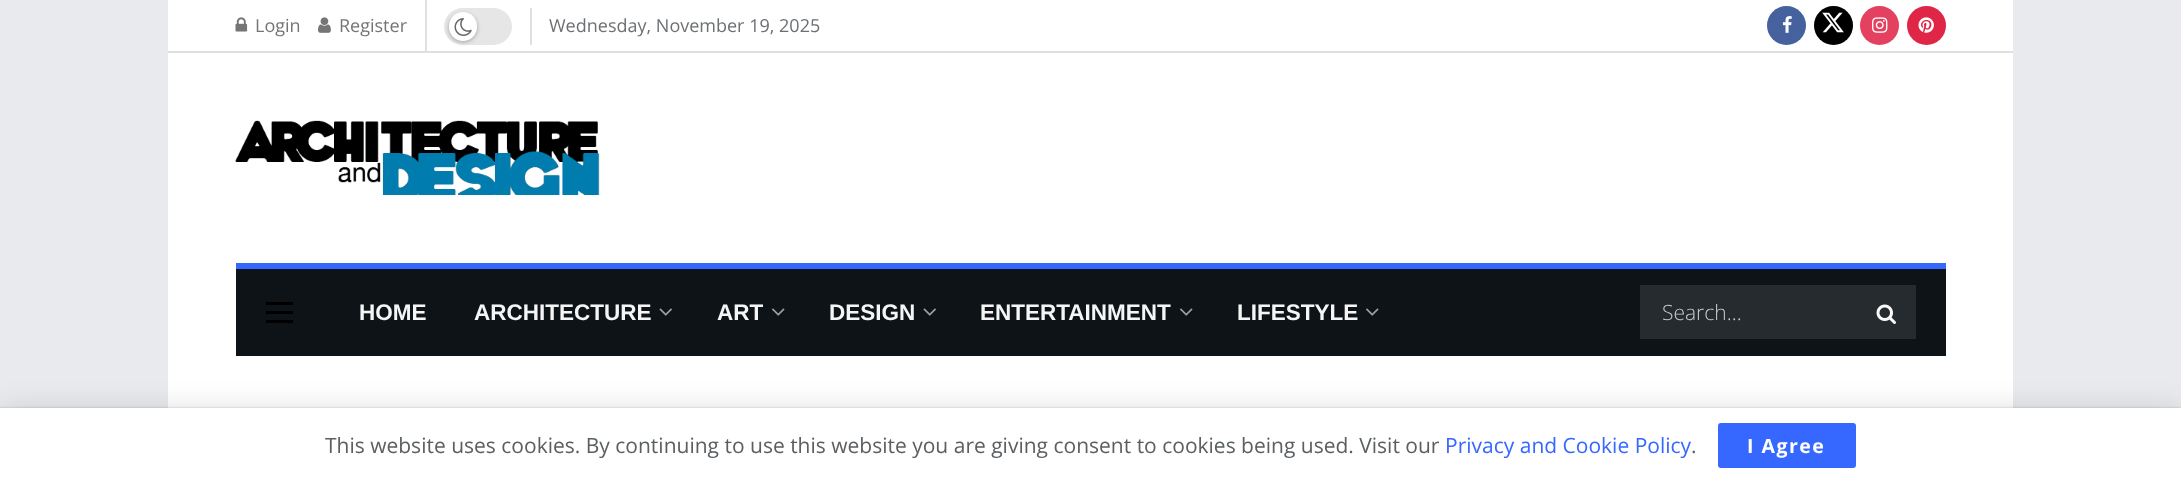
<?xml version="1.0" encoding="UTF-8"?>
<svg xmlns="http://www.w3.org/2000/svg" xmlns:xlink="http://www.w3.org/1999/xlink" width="2181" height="482">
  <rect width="100%" height="100%" fill="#e9eaed" />
  <rect x="168" width="1845" height="51" fill="#ffffff" />
  <rect x="168" y="51" width="1845" height="2" fill="#e0e0e0" />
  <rect x="425" width="2" height="51" fill="#e0e0e0" />
  <image x="235" y="17" width="13" height="15" xlink:href="image1.png" />
  <image x="318" y="17" width="13" height="16" xlink:href="image2.png" />
  <rect x="530" y="8" width="2" height="37" fill="#e0e0e0" />
  <rect x="444" y="8" width="68" height="37" rx="18.5" fill="#e6e6e6" />
  <rect x="449" y="14" width="28" height="28" rx="14" fill="#000000" fill-opacity="0.3" filter="blur(2px)" />
  <rect x="449" y="12" width="28" height="29" rx="14" fill="#ffffff" />
  <image x="454" y="18" width="18" height="18" xlink:href="image3.png" />
  <circle cx="1786.5" cy="25.5" r="19.5" fill="#45629f" />
  <image x="1782" y="16" width="10" height="17" xlink:href="image4.png" />
  <circle cx="1833.5" cy="25.5" r="19.5" fill="#000000" />
  <image x="1822" y="12" width="22" height="21" xlink:href="image5.png" />
  <circle cx="1879.5" cy="25.5" r="19.5" fill="#e4405f" />
  <image x="1872" y="17" width="16" height="16" xlink:href="image6.png" />
  <circle cx="1926.5" cy="25.5" r="19.5" fill="#e02647" />
  <image x="1918" y="17" width="16" height="16" xlink:href="image7.png" />
  <rect x="168" y="53" width="1845" height="355" fill="#ffffff" />
  <image x="235" y="120" width="365" height="75" xlink:href="image8.png" />
  <rect x="236" y="269" width="1710" height="87" fill="#0d1317" />
  <rect x="236" y="263" width="1710" height="6" fill="#3667ff" />
  <rect x="266" y="302" width="27" height="3" fill="#000000" />
  <rect x="266" y="311" width="27" height="3" fill="#000000" />
  <rect x="266" y="320" width="27" height="3" fill="#000000" />
  <image x="659" y="308" width="13" height="8" xlink:href="image9.png" />
  <image x="772" y="308" width="13" height="8" xlink:href="image10.png" />
  <image x="923" y="308" width="13" height="8" xlink:href="image9.png" />
  <image x="1180" y="308" width="13" height="8" xlink:href="image10.png" />
  <image x="1366" y="308" width="13" height="8" xlink:href="image10.png" />
  <rect x="1640" y="285" width="276" height="54" fill="#252b2e" />
  <image x="1876" y="304" width="20" height="20" xlink:href="image11.png" />
  <rect y="411" width="2181" height="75" fill="#000000" fill-opacity="0.15" filter="blur(15px)" />
  <rect y="408" width="2181" height="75" fill="#000000" fill-opacity="0.2" filter="blur(1px)" />
  <rect y="408" width="2181" height="74" fill="#ffffff" />
  <rect x="1718" y="423" width="138" height="45" rx="3" fill="#3667ff" />
  <text x="255" y="32" style="font-family: Open Sans; font-size: 18px; fill: #757575">Login</text>
  <text x="339" y="32" style="font-family: Open Sans; font-size: 18px; fill: #757575">Register</text>
  <text x="549" y="32" style="font-family: Open Sans; font-size: 18px; fill: #6d7073">Wednesday, November 19, 2025</text>
  <text x="359" y="320" style="font-family: Liberation Sans; font-size: 22.5px; font-weight: bold; fill: #f5f5f5">HOME</text>
  <text x="474" y="320" style="font-family: Liberation Sans; font-size: 22.5px; font-weight: bold; fill: #f5f5f5">ARCHITECTURE</text>
  <text x="717" y="320" style="font-family: Liberation Sans; font-size: 22.5px; font-weight: bold; fill: #f5f5f5">ART</text>
  <text x="829" y="320" style="font-family: Liberation Sans; font-size: 22.5px; font-weight: bold; fill: #f5f5f5">DESIGN</text>
  <text x="980" y="320" style="font-family: Liberation Sans; font-size: 22.5px; font-weight: bold; fill: #f5f5f5">ENTERTAINMENT</text>
  <text x="1237" y="320" style="font-family: Liberation Sans; font-size: 22.5px; font-weight: bold; fill: #f5f5f5">LIFESTYLE</text>
  <text x="1662" y="320" style="font-family: Open Sans; font-size: 21px; font-weight: 300; fill: #c9cacb">Search...</text>
  <text x="325" y="453" style="font-family: Open Sans; font-size: 21px; fill: #5b5f62">This website uses cookies. By continuing to use this website you are giving consent to cookies being used. Visit our</text>
  <text x="1445" y="453" style="font-family: Open Sans; font-size: 21px; fill: #3667ff">Privacy and Cookie Policy</text>
  <text x="1691" y="453" style="font-family: Open Sans; font-size: 21px; fill: #5b5f62">.</text>
  <text x="1747" y="453" style="font-family: Open Sans; font-size: 19.5px; font-weight: bold; letter-spacing: 1.5px; fill: #ffffff">I Agree</text>
</svg>
